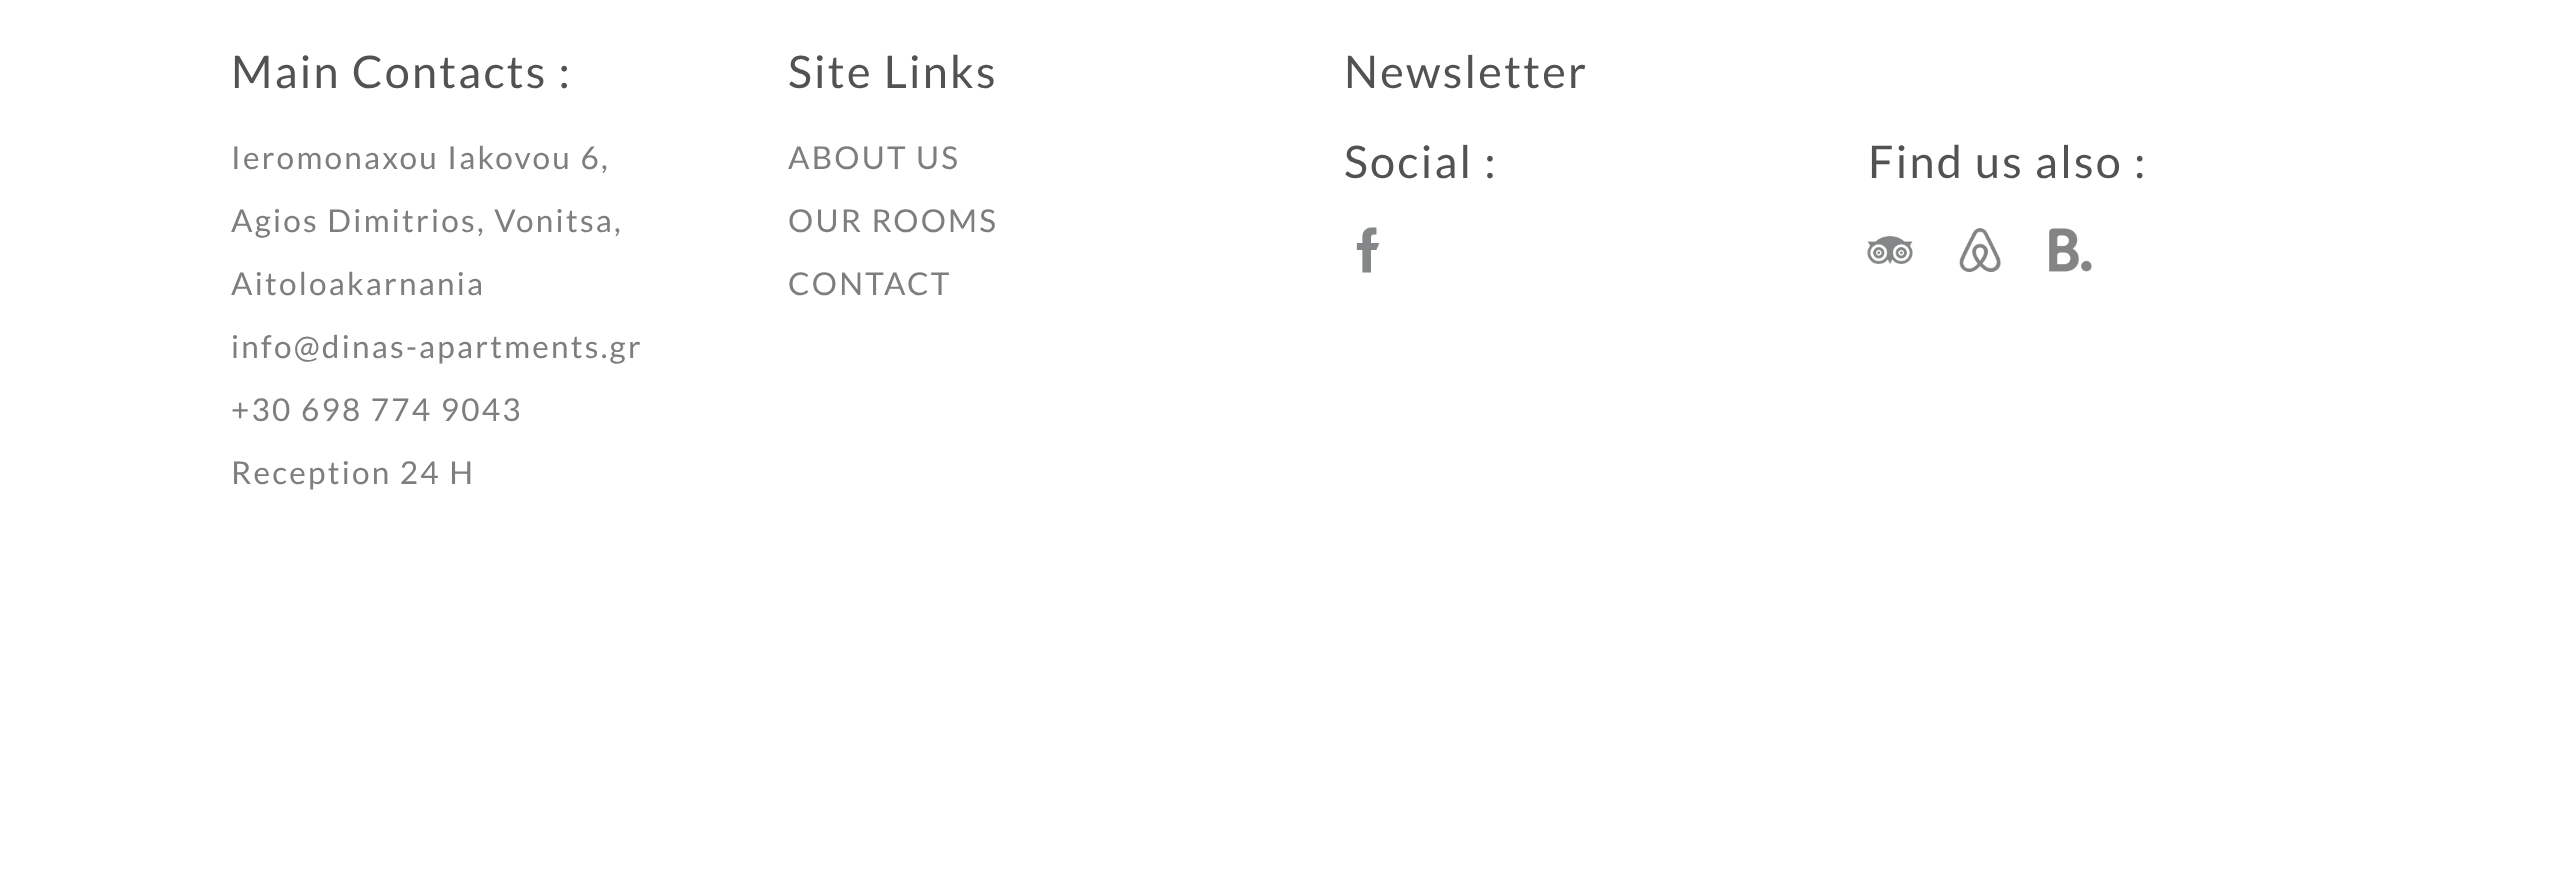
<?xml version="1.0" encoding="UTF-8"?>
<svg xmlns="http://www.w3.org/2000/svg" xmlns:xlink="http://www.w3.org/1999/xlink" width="2552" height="888">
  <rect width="100%" height="100%" fill="#ffffff" />
  <image x="1356" y="227" width="24" height="46" xlink:href="image1.png" />
  <image x="1867" y="236" width="46" height="28" xlink:href="image2.png" />
  <image x="1959" y="228" width="42" height="45" xlink:href="image3.png" />
  <image x="2049" y="228" width="43" height="44" xlink:href="image4.png" />
  <text x="231" y="88" style="font-family: Lato; font-size: 45px; letter-spacing: 2.25px; fill: #525252">Main Contacts :</text>
  <text x="231" y="169" style="font-family: Lato; font-size: 31.5px; letter-spacing: 2.25px; fill: #7e7e7e">Ieromonaxou Iakovou 6,</text>
  <text x="231" y="232" style="font-family: Lato; font-size: 31.5px; letter-spacing: 2.25px; fill: #7e7e7e">Agios Dimitrios, Vonitsa,</text>
  <text x="231" y="295" style="font-family: Lato; font-size: 31.5px; letter-spacing: 2.25px; fill: #7e7e7e">Aitoloakarnania</text>
  <text x="231" y="358" style="font-family: Lato; font-size: 31.5px; letter-spacing: 2.25px; fill: #7e7e7e">info@dinas-apartments.gr</text>
  <text x="231" y="421" style="font-family: Lato; font-size: 31.5px; letter-spacing: 2.25px; fill: #7e7e7e">+30 698 774 9043</text>
  <text x="231" y="484" style="font-family: Lato; font-size: 31.5px; letter-spacing: 2.25px; fill: #7e7e7e">Reception 24 H</text>
  <text x="788" y="88" style="font-family: Lato; font-size: 45px; letter-spacing: 2.25px; fill: #525252">Site Links</text>
  <text x="788" y="169" style="font-family: Lato; font-size: 31.5px; letter-spacing: 2.25px; fill: #7e7e7e">ABOUT US</text>
  <text x="788" y="232" style="font-family: Lato; font-size: 31.5px; letter-spacing: 2.25px; fill: #7e7e7e">OUR ROOMS</text>
  <text x="788" y="295" style="font-family: Lato; font-size: 31.5px; letter-spacing: 2.25px; fill: #7e7e7e">CONTACT</text>
  <text x="1344" y="88" style="font-family: Lato; font-size: 45px; letter-spacing: 2.25px; fill: #525252">Newsletter</text>
  <text x="1344" y="178" style="font-family: Lato; font-size: 45px; letter-spacing: 2.25px; fill: #525252">Social :</text>
  <text x="1868" y="178" style="font-family: Lato; font-size: 45px; letter-spacing: 2.25px; fill: #525252">Find us also :</text>
</svg>
